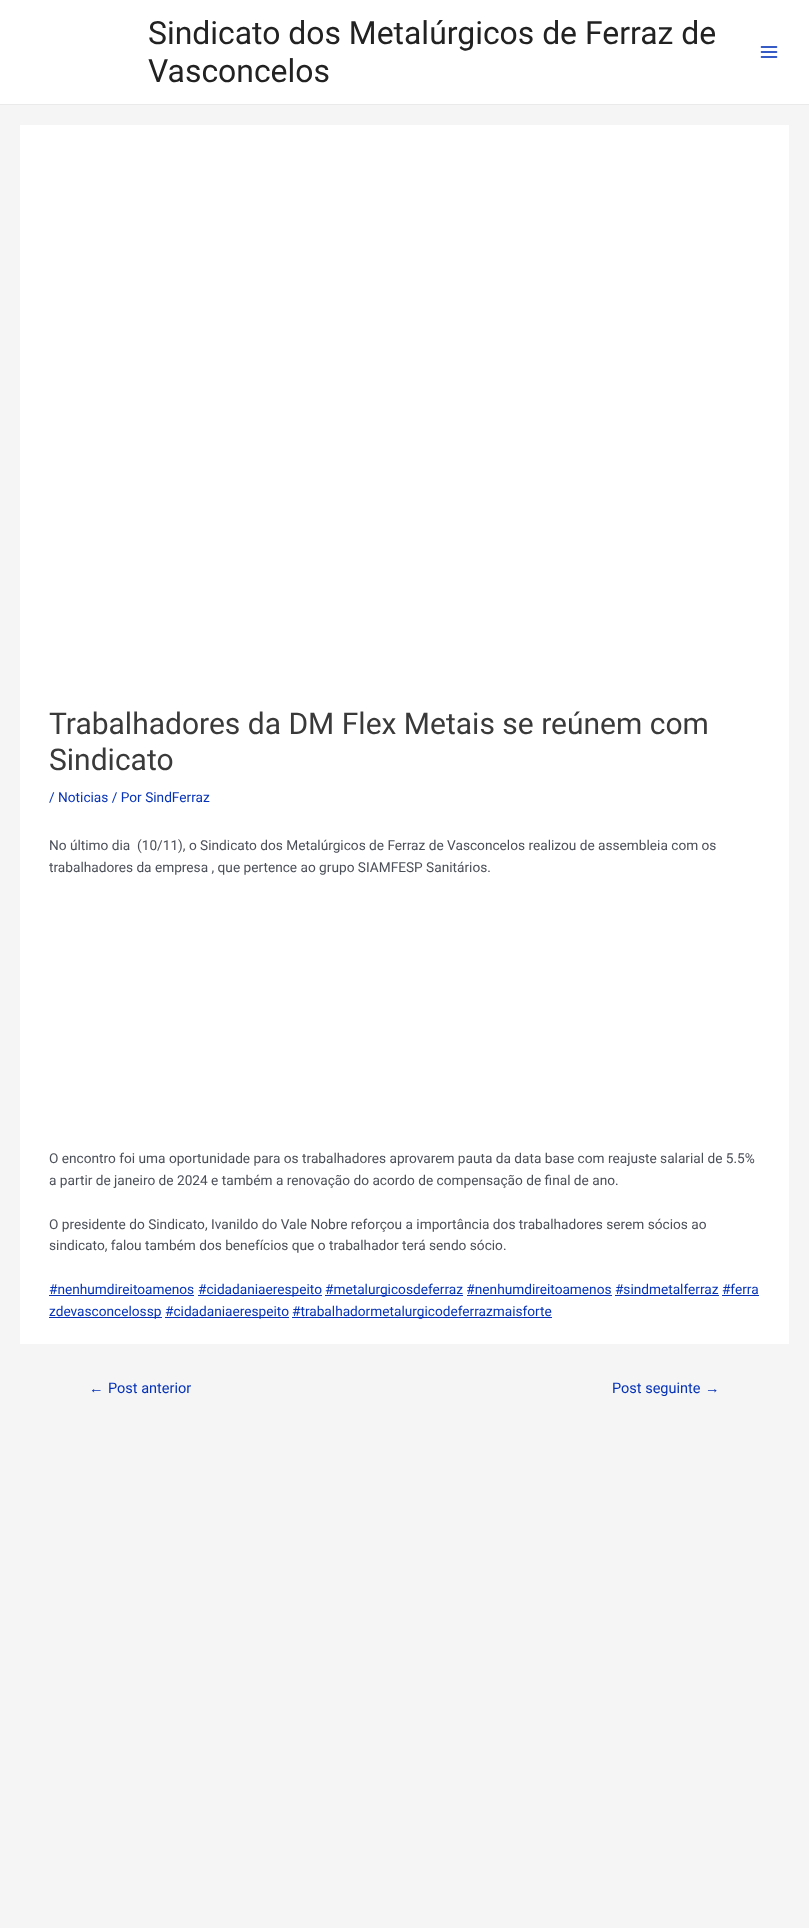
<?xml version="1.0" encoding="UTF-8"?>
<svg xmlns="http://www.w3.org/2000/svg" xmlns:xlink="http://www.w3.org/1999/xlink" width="809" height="1928">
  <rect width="100%" height="100%" fill="#f5f5f5" />
  <rect width="809" height="104" fill="#ffffff" />
  <rect y="104" width="809" height="1" fill="#eaeaea" />
  <image x="760" y="46" width="18" height="12" xlink:href="image1.png" />
  <rect x="20" y="125" width="769" height="1219" fill="#ffffff" />
  <rect x="49" y="1295" width="145" height="1" fill="#0532b7" />
  <rect x="198" y="1295" width="124" height="1" fill="#0532b7" />
  <rect x="325" y="1295" width="138" height="1" fill="#0532b7" />
  <rect x="467" y="1295" width="145" height="1" fill="#0532b7" />
  <rect x="615" y="1295" width="104" height="1" fill="#0532b7" />
  <rect x="722" y="1295" width="37" height="1" fill="#0532b7" />
  <rect x="49" y="1317" width="113" height="1" fill="#0532b7" />
  <rect x="165" y="1317" width="124" height="1" fill="#0532b7" />
  <rect x="292" y="1317" width="260" height="1" fill="#0532b7" />
  <text x="148" y="44" style="font-family: Roboto; font-size: 31.9px; fill: #222222">Sindicato dos Metalúrgicos de Ferraz de</text>
  <text x="148" y="82" style="font-family: Roboto; font-size: 31.9px; fill: #222222">Vasconcelos</text>
  <text x="49" y="734" style="font-family: Roboto; font-size: 30px; fill: #3a3a3a">Trabalhadores da DM Flex Metais se reúnem com</text>
  <text x="49" y="770" style="font-family: Roboto; font-size: 30px; fill: #3a3a3a">Sindicato</text>
  <text x="49" y="802" style="font-family: Roboto; font-size: 13.68px; fill: #0532b7">/ Noticias / Por SindFerraz</text>
  <text x="49" y="850" style="font-family: Roboto; font-size: 13.68px; fill: #4b4f58" xml:space="preserve">No último dia  (10/11), o Sindicato dos Metalúrgicos de Ferraz de Vasconcelos realizou de assembleia com os</text>
  <text x="49" y="872" style="font-family: Roboto; font-size: 13.68px; fill: #4b4f58">trabalhadores da empresa , que pertence ao grupo SIAMFESP Sanitários.</text>
  <text x="49" y="1163" style="font-family: Roboto; font-size: 13.68px; fill: #4b4f58">O encontro foi uma oportunidade para os trabalhadores aprovarem pauta da data base com reajuste salarial de 5.5%</text>
  <text x="49" y="1185" style="font-family: Roboto; font-size: 13.68px; fill: #4b4f58">a partir de janeiro de 2024 e também a renovação do acordo de compensação de final de ano.</text>
  <text x="49" y="1229" style="font-family: Roboto; font-size: 13.68px; fill: #4b4f58">O presidente do Sindicato, Ivanildo do Vale Nobre reforçou a importância dos trabalhadores serem sócios ao</text>
  <text x="49" y="1250" style="font-family: Roboto; font-size: 13.68px; fill: #4b4f58">sindicato, falou também dos benefícios que o trabalhador terá sendo sócio.</text>
  <text x="49" y="1294" style="font-family: Roboto; font-size: 13.68px; fill: #0532b7">#nenhumdireitoamenos</text>
  <text x="198" y="1294" style="font-family: Roboto; font-size: 13.68px; fill: #0532b7">#cidadaniaerespeito</text>
  <text x="325" y="1294" style="font-family: Roboto; font-size: 13.68px; fill: #0532b7">#metalurgicosdeferraz #nenhumdireitoamenos #sindmetalferraz #ferra</text>
  <text x="49" y="1316" style="font-family: Roboto; font-size: 13.68px; fill: #0532b7">zdevasconcelossp</text>
  <text x="165" y="1316" style="font-family: Roboto; font-size: 13.68px; fill: #0532b7">#cidadaniaerespeito</text>
  <text x="292" y="1316" style="font-family: Roboto; font-size: 13.68px; fill: #0532b7">#trabalhadormetalurgicodeferrazmaisforte</text>
  <text x="89" y="1393" style="font-family: Liberation Sans; font-size: 14.5px; fill: #0532b7">←</text>
  <text x="108" y="1393" style="font-family: Roboto; font-size: 14.5px; fill: #0532b7">Post anterior</text>
  <text x="612" y="1393" style="font-family: Roboto; font-size: 14.5px; fill: #0532b7">Post seguinte</text>
  <text x="705" y="1393" style="font-family: Liberation Sans; font-size: 14.5px; fill: #0532b7">→</text>
</svg>
